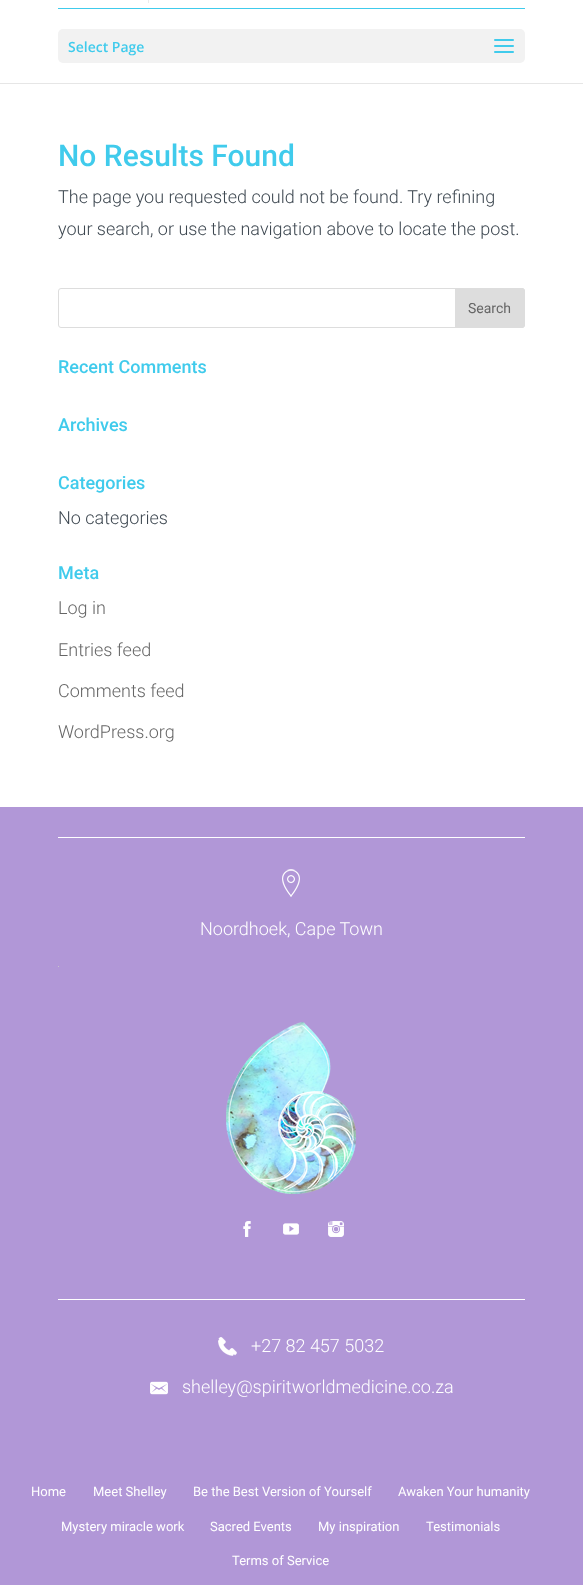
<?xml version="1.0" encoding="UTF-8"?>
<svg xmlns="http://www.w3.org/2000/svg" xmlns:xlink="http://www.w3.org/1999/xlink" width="583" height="1585">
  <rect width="100%" height="100%" fill="#ffffff" />
  <rect y="83" width="583" height="1" fill="#e6e6e6" />
  <rect x="148" width="1" height="3" fill="#ebebeb" />
  <rect x="58" y="8" width="467" height="1" fill="#40cbec" />
  <rect x="58" y="29" width="467" height="34" rx="5" fill="#f2f2f2" />
  <image x="494" y="39" width="20" height="14" xlink:href="image1.png" />
  <rect x="58.5" y="288.5" width="466" height="39" rx="2.5" fill="none" stroke="#dddddd" />
  <path d="M 455.5 288.5 h 66.5 c 1.5 0 2.5 1 2.5 2.5 v 34 c 0 1.5 -1 2.5 -2.5 2.5 h -66.5 z" fill="#dddddd" stroke="#dddddd" />
  <rect y="807" width="583" height="778" fill="#b197d7" />
  <rect x="58" y="837" width="467" height="1" fill="#ffffff" />
  <image x="282" y="869" width="18" height="28" xlink:href="image2.png" />
  <rect x="58" y="966" width="1" height="1" fill="#c7c5c9" />
  <image x="226" y="1022" width="130" height="172" xlink:href="image3.png" />
  <image x="243" y="1221" width="8" height="16" xlink:href="image4.png" />
  <image x="283" y="1223" width="16" height="12" xlink:href="image5.png" />
  <image x="328" y="1221" width="16" height="16" xlink:href="image6.png" />
  <rect x="58" y="1299" width="467" height="1" fill="#ffffff" />
  <image x="218" y="1337" width="19" height="19" xlink:href="image7.png" />
  <image x="150" y="1381" width="18" height="14" xlink:href="image8.png" />
  <text x="68" y="52" style="font-family: Open Sans; font-size: 14px; font-weight: 600; fill: #40cbec">Select Page</text>
  <text x="58" y="166" style="font-family: Roboto; font-size: 30px; font-weight: 500; fill: #40cbec">No Results Found</text>
  <text x="58" y="203" style="font-family: Roboto; font-size: 18px; font-weight: 300; fill: #3d4750">The page you requested could not be found. Try refining</text>
  <text x="58" y="235" style="font-family: Roboto; font-size: 18px; font-weight: 300; fill: #3d4750">your search, or use the navigation above to locate the post.</text>
  <text x="468" y="313" style="font-family: Roboto; font-size: 14px; fill: #666666">Search</text>
  <text x="58" y="373" style="font-family: Roboto; font-size: 18px; font-weight: 500; fill: #40cbec">Recent Comments</text>
  <text x="58" y="431" style="font-family: Roboto; font-size: 18px; font-weight: 500; fill: #40cbec">Archives</text>
  <text x="58" y="489" style="font-family: Roboto; font-size: 18px; font-weight: 500; fill: #40cbec">Categories</text>
  <text x="58" y="524" style="font-family: Roboto; font-size: 18px; font-weight: 300; fill: #3d4750">No categories</text>
  <text x="58" y="579" style="font-family: Roboto; font-size: 18px; font-weight: 500; fill: #40cbec">Meta</text>
  <text x="58" y="614" style="font-family: Roboto; font-size: 18px; font-weight: 300; fill: #666666">Log in</text>
  <text x="58" y="656" style="font-family: Roboto; font-size: 18px; font-weight: 300; fill: #666666">Entries feed</text>
  <text x="58" y="697" style="font-family: Roboto; font-size: 18px; font-weight: 300; fill: #666666">Comments feed</text>
  <text x="58" y="738" style="font-family: Roboto; font-size: 18px; font-weight: 300; fill: #666666">WordPress.org</text>
  <text x="200" y="935" style="font-family: Roboto; font-size: 18px; font-weight: 300; fill: #ffffff">Noordhoek, Cape Town</text>
  <text x="251" y="1352" style="font-family: Roboto; font-size: 18px; font-weight: 300; fill: #ffffff">+27 82 457 5032</text>
  <text x="182" y="1393" style="font-family: Roboto; font-size: 18px; font-weight: 300; fill: #ffffff">shelley@spiritworldmedicine.co.za</text>
  <text x="31" y="1496" style="font-family: Roboto; font-size: 13px; fill: #ffffff">Home</text>
  <text x="93" y="1496" style="font-family: Roboto; font-size: 13px; fill: #ffffff">Meet Shelley</text>
  <text x="193" y="1496" style="font-family: Roboto; font-size: 13px; fill: #ffffff">Be the Best Version of Yourself</text>
  <text x="398" y="1496" style="font-family: Roboto; font-size: 13px; fill: #ffffff">Awaken Your humanity</text>
  <text x="61" y="1531" style="font-family: Roboto; font-size: 13px; fill: #ffffff">Mystery miracle work</text>
  <text x="210" y="1531" style="font-family: Roboto; font-size: 13px; fill: #ffffff">Sacred Events</text>
  <text x="318" y="1531" style="font-family: Roboto; font-size: 13px; fill: #ffffff">My inspiration</text>
  <text x="426" y="1531" style="font-family: Roboto; font-size: 13px; fill: #ffffff">Testimonials</text>
  <text x="232" y="1565" style="font-family: Roboto; font-size: 13px; fill: #ffffff">Terms of Service</text>
</svg>
